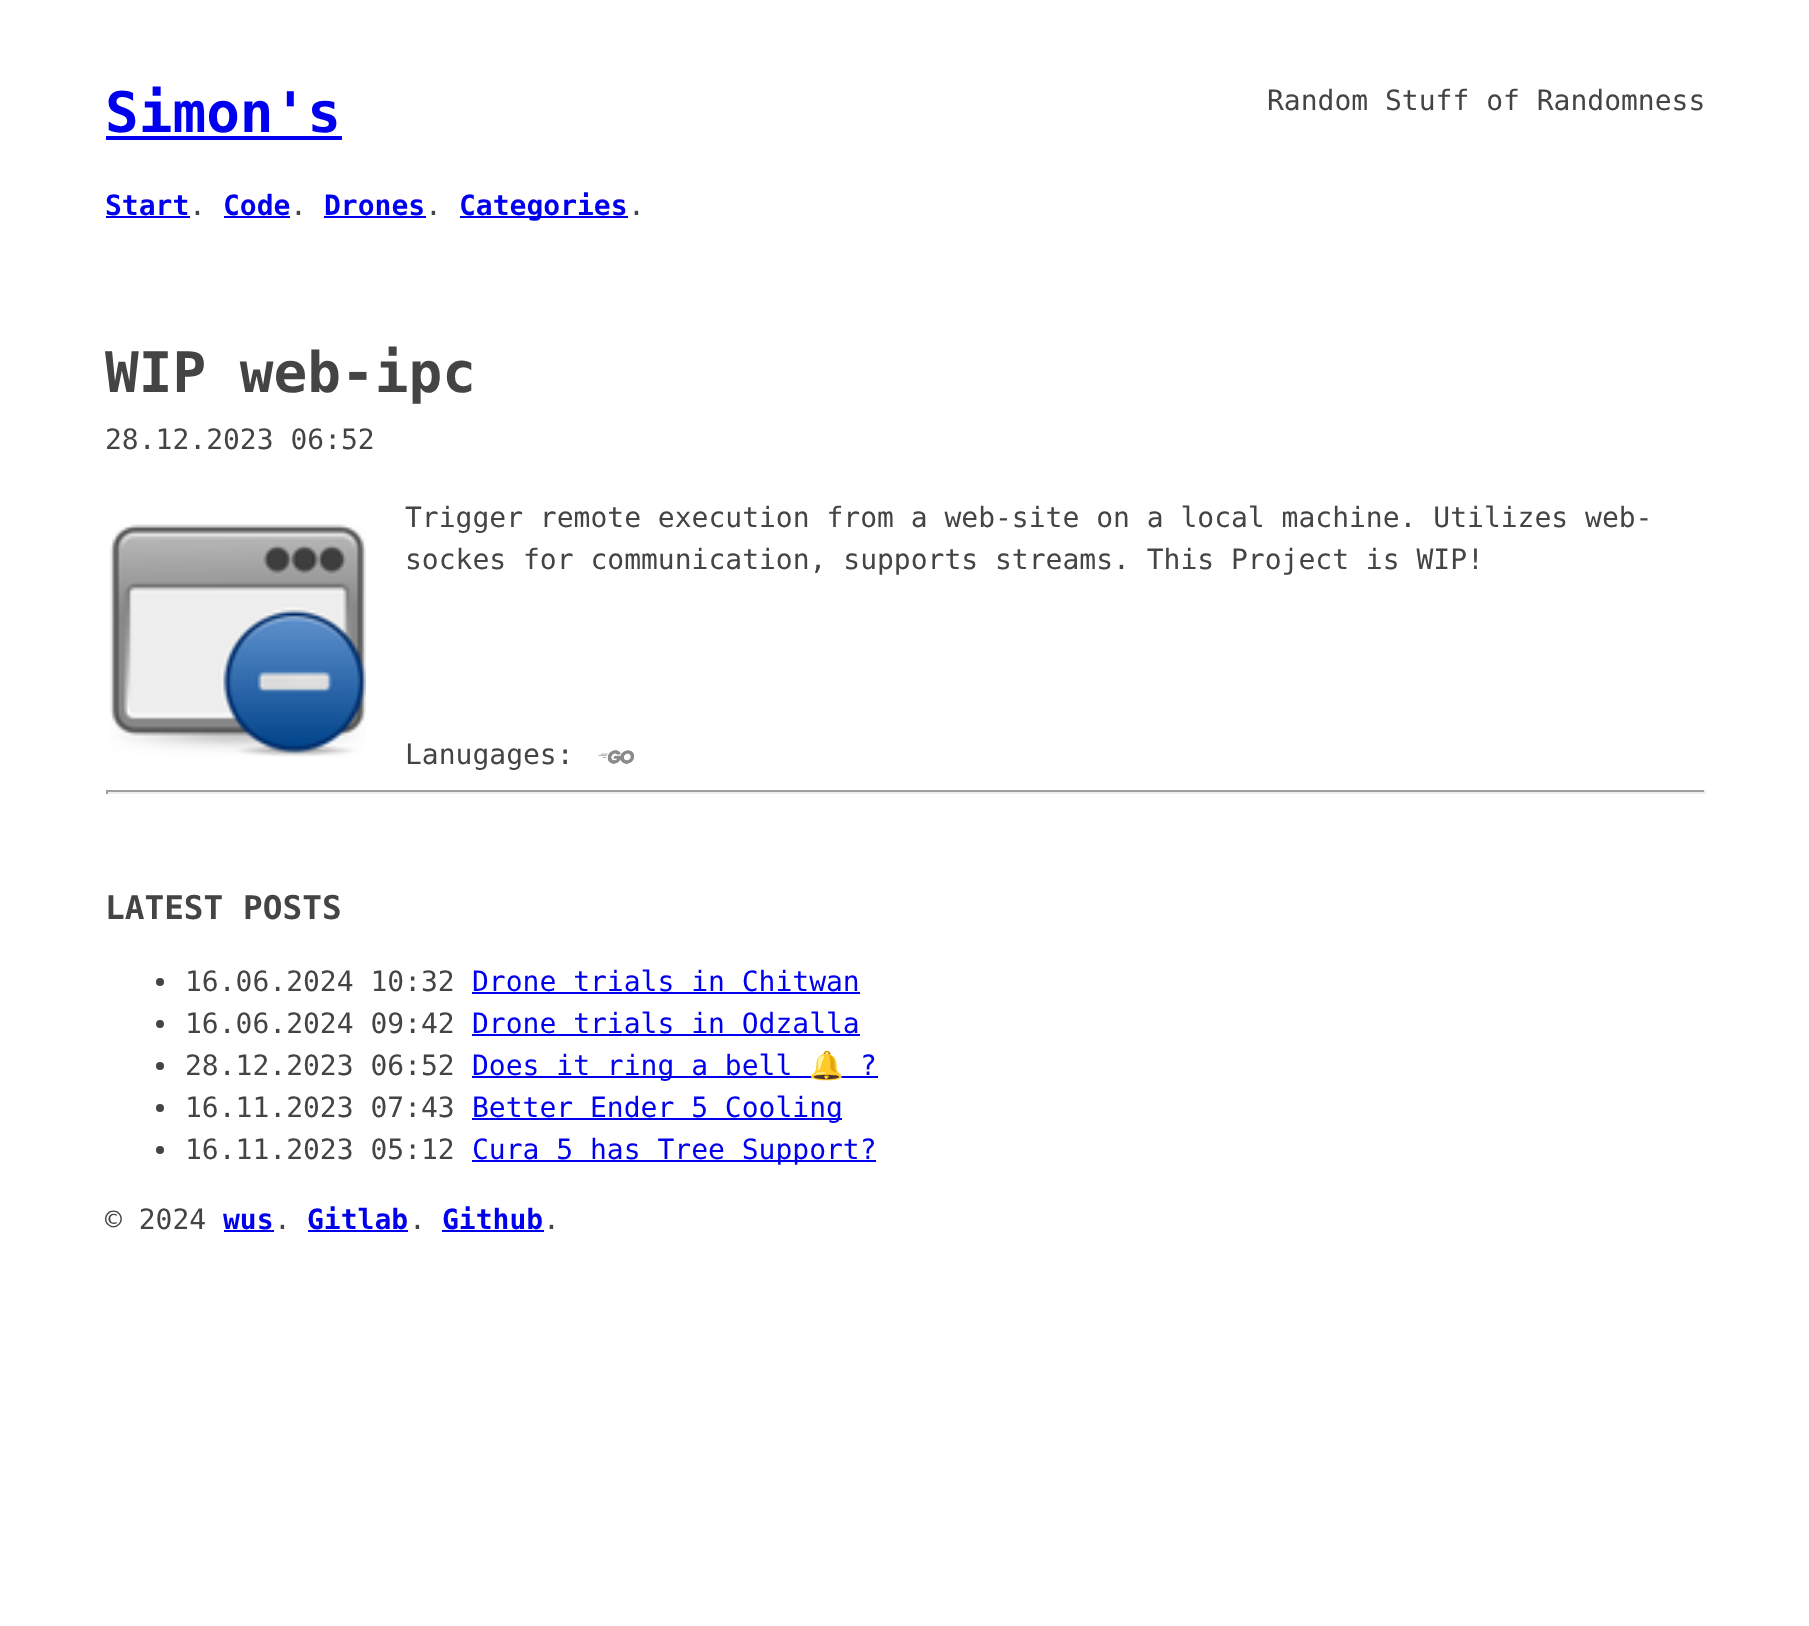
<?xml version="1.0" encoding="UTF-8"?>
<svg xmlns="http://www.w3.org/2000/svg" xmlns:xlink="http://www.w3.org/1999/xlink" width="1809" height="1626">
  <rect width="100%" height="100%" fill="#ffffff" />
  <rect x="106" y="136" width="236" height="4" fill="#0000ee" />
  <rect x="106" y="216" width="84" height="2" fill="#0000ee" />
  <rect x="224" y="216" width="66" height="2" fill="#0000ee" />
  <rect x="324" y="216" width="102" height="2" fill="#0000ee" />
  <rect x="460" y="216" width="168" height="2" fill="#0000ee" />
  <image x="110" y="524" width="256" height="233" xlink:href="image1.png" />
  <image x="598" y="750" width="36" height="14" xlink:href="image2.png" />
  <rect x="106" y="790" width="1600" height="2" fill="#9f9f9f" />
  <rect x="1704" y="790" width="2" height="4" fill="#eeeeee" />
  <rect x="106" y="792" width="1600" height="2" fill="#eeeeee" />
  <rect x="106" y="790" width="2" height="4" fill="#9f9f9f" />
  <circle cx="160" cy="982" r="4" fill="#444444" />
  <rect x="472" y="992" width="388" height="2" fill="#0000ee" />
  <circle cx="160" cy="1024" r="4" fill="#444444" />
  <rect x="472" y="1034" width="388" height="2" fill="#0000ee" />
  <circle cx="160" cy="1066" r="4" fill="#444444" />
  <rect x="472" y="1076" width="406" height="2" fill="#0000ee" />
  <circle cx="160" cy="1108" r="4" fill="#444444" />
  <rect x="472" y="1118" width="370" height="2" fill="#0000ee" />
  <circle cx="160" cy="1150" r="4" fill="#444444" />
  <rect x="472" y="1160" width="404" height="2" fill="#0000ee" />
  <rect x="224" y="1230" width="50" height="2" fill="#0000ee" />
  <rect x="308" y="1230" width="100" height="2" fill="#0000ee" />
  <rect x="442" y="1230" width="102" height="2" fill="#0000ee" />
  <text x="105" y="132" style="font-family: DejaVu Sans Mono; font-size: 56px; font-weight: bold; fill: #0000ee">Simon's</text>
  <text x="1267" y="110" style="font-family: DejaVu Sans Mono; font-size: 28px; fill: #444444">Random Stuff of Randomness</text>
  <text x="105" y="215" style="font-family: DejaVu Sans Mono; font-size: 28px; font-weight: bold; fill: #0000ee">Start</text>
  <text x="189" y="215" style="font-family: DejaVu Sans Mono; font-size: 28px; fill: #444444">.</text>
  <text x="223" y="215" style="font-family: DejaVu Sans Mono; font-size: 28px; font-weight: bold; fill: #0000ee">Code</text>
  <text x="290" y="215" style="font-family: DejaVu Sans Mono; font-size: 28px; fill: #444444">.</text>
  <text x="324" y="215" style="font-family: DejaVu Sans Mono; font-size: 28px; font-weight: bold; fill: #0000ee">Drones</text>
  <text x="425" y="215" style="font-family: DejaVu Sans Mono; font-size: 28px; fill: #444444">.</text>
  <text x="459" y="215" style="font-family: DejaVu Sans Mono; font-size: 28px; font-weight: bold; fill: #0000ee">Categories</text>
  <text x="628" y="215" style="font-family: DejaVu Sans Mono; font-size: 28px; fill: #444444">.</text>
  <text x="105" y="392" style="font-family: DejaVu Sans Mono; font-size: 56px; font-weight: bold; fill: #444444">WIP web-ipc</text>
  <text x="105" y="449" style="font-family: DejaVu Sans Mono; font-size: 28px; fill: #444444">28.12.2023 06:52</text>
  <text x="405" y="527" style="font-family: DejaVu Sans Mono; font-size: 28px; fill: #444444">Trigger remote execution from a web-site on a local machine. Utilizes web-</text>
  <text x="405" y="569" style="font-family: DejaVu Sans Mono; font-size: 28px; fill: #444444">sockes for communication, supports streams. This Project is WIP!</text>
  <text x="405" y="764" style="font-family: DejaVu Sans Mono; font-size: 28px; fill: #444444">Lanugages:</text>
  <text x="105" y="919" style="font-family: DejaVu Sans Mono; font-size: 32.75px; font-weight: bold; fill: #444444">LATEST POSTS</text>
  <text x="185" y="991" style="font-family: DejaVu Sans Mono; font-size: 28px; fill: #444444">16.06.2024 10:32</text>
  <text x="472" y="991" style="font-family: DejaVu Sans Mono; font-size: 28px; fill: #0000ee">Drone trials in Chitwan</text>
  <text x="185" y="1033" style="font-family: DejaVu Sans Mono; font-size: 28px; fill: #444444">16.06.2024 09:42</text>
  <text x="472" y="1033" style="font-family: DejaVu Sans Mono; font-size: 28px; fill: #0000ee">Drone trials in Odzalla</text>
  <text x="185" y="1075" style="font-family: DejaVu Sans Mono; font-size: 28px; fill: #444444">28.12.2023 06:52</text>
  <text x="472" y="1075" style="font-family: DejaVu Sans Mono; font-size: 28px; fill: #0000ee">Does it ring a bell</text>
  <text x="809" y="1075" style="font-family: Noto Color Emoji; font-size: 28px; fill: #0000ee">🔔</text>
  <text x="860" y="1075" style="font-family: DejaVu Sans Mono; font-size: 28px; fill: #0000ee">?</text>
  <text x="185" y="1117" style="font-family: DejaVu Sans Mono; font-size: 28px; fill: #444444">16.11.2023 07:43</text>
  <text x="472" y="1117" style="font-family: DejaVu Sans Mono; font-size: 28px; fill: #0000ee">Better Ender 5 Cooling</text>
  <text x="185" y="1159" style="font-family: DejaVu Sans Mono; font-size: 28px; fill: #444444">16.11.2023 05:12</text>
  <text x="472" y="1159" style="font-family: DejaVu Sans Mono; font-size: 28px; fill: #0000ee">Cura 5 has Tree Support?</text>
  <text x="105" y="1229" style="font-family: DejaVu Sans Mono; font-size: 28px; fill: #444444">© 2024</text>
  <text x="223" y="1229" style="font-family: DejaVu Sans Mono; font-size: 28px; font-weight: bold; fill: #0000ee">wus</text>
  <text x="274" y="1229" style="font-family: DejaVu Sans Mono; font-size: 28px; fill: #444444">.</text>
  <text x="307" y="1229" style="font-family: DejaVu Sans Mono; font-size: 28px; font-weight: bold; fill: #0000ee">Gitlab</text>
  <text x="409" y="1229" style="font-family: DejaVu Sans Mono; font-size: 28px; fill: #444444">.</text>
  <text x="442" y="1229" style="font-family: DejaVu Sans Mono; font-size: 28px; font-weight: bold; fill: #0000ee">Github</text>
  <text x="543" y="1229" style="font-family: DejaVu Sans Mono; font-size: 28px; fill: #444444">.</text>
</svg>
